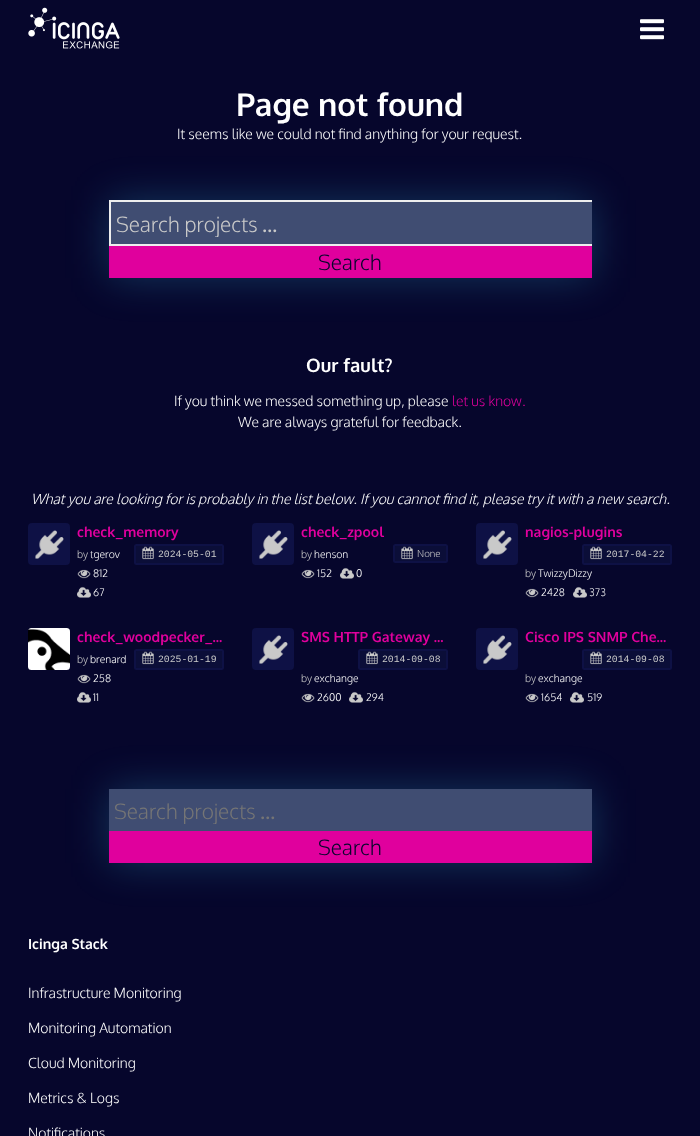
<?xml version="1.0" encoding="UTF-8"?>
<svg xmlns="http://www.w3.org/2000/svg" xmlns:xlink="http://www.w3.org/1999/xlink" width="700" height="1136">
  <defs>
    <clipPath id="clip1"><rect x="116" y="210" width="470" height="27" /></clipPath>
    <clipPath id="clip2"><rect x="525" y="523" width="147" height="17" /></clipPath>
    <clipPath id="clip3"><rect x="114" y="797" width="472" height="27" /></clipPath>
  </defs>
  <rect width="100%" height="100%" fill="#06062c" />
  <image x="28" y="7" width="92" height="42" xlink:href="image1.png" />
  <image x="640" y="19" width="24" height="21" xlink:href="image2.png" />
  <rect x="109" y="200" width="483" height="78" fill="#37c4ed" fill-opacity="0.25" filter="blur(21px)" />
  <rect x="111" y="202" width="481" height="42" fill="#404d72" />
  <rect x="109" y="200" width="483" height="2" fill="#eeeeee" />
  <rect x="109" y="244" width="483" height="2" fill="#eeeeee" />
  <rect x="109" y="200" width="2" height="46" fill="#eeeeee" />
  <rect x="109" y="246" width="483" height="32" fill="#e0009d" />
  <rect x="28" y="523" width="42" height="42" rx="4" fill="#0e1145" />
  <image x="35" y="530" width="29" height="29" xlink:href="image3.png" />
  <rect x="135" y="545" width="88" height="19" rx="1.5" fill="#0b0e38" stroke="#0e1145" stroke-width="2" />
  <image x="142" y="546" width="12" height="14" xlink:href="image4.png" />
  <image x="77" y="569" width="14" height="10" xlink:href="image5.png" />
  <image x="77" y="586" width="14" height="12" xlink:href="image6.png" />
  <rect x="252" y="523" width="42" height="42" rx="4" fill="#0e1145" />
  <image x="259" y="530" width="29" height="29" xlink:href="image3.png" />
  <rect x="394" y="545" width="53" height="17" rx="1.5" fill="#0b0e38" stroke="#0e1145" stroke-width="2" />
  <image x="401" y="546" width="12" height="14" xlink:href="image4.png" />
  <image x="301" y="569" width="14" height="10" xlink:href="image5.png" />
  <image x="340" y="567" width="14" height="12" xlink:href="image6.png" />
  <rect x="476" y="523" width="42" height="42" rx="4" fill="#0e1145" />
  <image x="483" y="530" width="29" height="29" xlink:href="image3.png" />
  <rect x="583" y="545" width="88" height="19" rx="1.5" fill="#0b0e38" stroke="#0e1145" stroke-width="2" />
  <image x="590" y="546" width="12" height="14" xlink:href="image4.png" />
  <image x="525" y="588" width="14" height="10" xlink:href="image5.png" />
  <image x="573" y="586" width="14" height="12" xlink:href="image6.png" />
  <image x="28" y="628" width="42" height="42" xlink:href="image7.png" />
  <rect x="135" y="650" width="88" height="19" rx="1.5" fill="#0b0e38" stroke="#0e1145" stroke-width="2" />
  <image x="142" y="651" width="12" height="14" xlink:href="image4.png" />
  <image x="77" y="674" width="14" height="10" xlink:href="image5.png" />
  <image x="77" y="691" width="14" height="12" xlink:href="image6.png" />
  <rect x="252" y="628" width="42" height="42" rx="4" fill="#0e1145" />
  <image x="259" y="635" width="29" height="29" xlink:href="image8.png" />
  <rect x="359" y="650" width="88" height="19" rx="1.5" fill="#0b0e38" stroke="#0e1145" stroke-width="2" />
  <image x="366" y="651" width="12" height="14" xlink:href="image4.png" />
  <image x="301" y="693" width="14" height="10" xlink:href="image5.png" />
  <image x="349" y="691" width="14" height="12" xlink:href="image6.png" />
  <rect x="476" y="628" width="42" height="42" rx="4" fill="#0e1145" />
  <image x="483" y="635" width="29" height="29" xlink:href="image8.png" />
  <rect x="583" y="650" width="88" height="19" rx="1.5" fill="#0b0e38" stroke="#0e1145" stroke-width="2" />
  <image x="590" y="651" width="12" height="14" xlink:href="image4.png" />
  <image x="525" y="693" width="14" height="10" xlink:href="image5.png" />
  <image x="570" y="691" width="14" height="12" xlink:href="image6.png" />
  <rect x="109" y="789" width="483" height="74" fill="#37c4ed" fill-opacity="0.25" filter="blur(21px)" />
  <rect x="109" y="789" width="483" height="42" fill="#404d72" />
  <rect x="109" y="831" width="483" height="32" fill="#e0009d" />
  <text x="236" y="116" style="font-family: Oxygen; font-size: 31.5px; font-weight: bold; fill: #ffffff">Page not found</text>
  <text x="177" y="139" style="font-family: Oxygen; font-size: 14px; font-weight: 300; fill: #ffffff">It seems like we could not find anything for your request.</text>
  <g clip-path="url(#clip1)">
    <text x="116" y="232" style="font-family: Oxygen; font-size: 21px; font-weight: 300; fill: #c9c9c9">Search projects</text>
  </g>
  <text x="262" y="232" style="font-family: Oxygen; font-size: 21px; fill: #c9c9c9">…</text>
  <text x="318" y="270" style="font-family: Oxygen; font-size: 21px; font-weight: 300; fill: #06062c">Search</text>
  <text x="306" y="372" style="font-family: Oxygen; font-size: 18.5px; font-weight: bold; fill: #ffffff">Our fault?</text>
  <text x="174" y="406" style="font-family: Oxygen; font-size: 14px; font-weight: 300; fill: #ffffff">If you think we messed something up, please</text>
  <text x="452" y="406" style="font-family: Oxygen; font-size: 14px; font-weight: 300; fill: #e0009d">let us know.</text>
  <text x="238" y="427" style="font-family: Oxygen; font-size: 14px; font-weight: 300; fill: #ffffff">We are always grateful for feedback.</text>
  <text x="31" y="504" style="font-family: Oxygen; font-size: 14px; font-weight: 300; font-style: italic; fill: #ffffff">What you are looking for is probably in the list below. If you cannot find it, please try it with a new search.</text>
  <text x="77" y="537" style="font-family: Oxygen; font-size: 14px; font-weight: bold; fill: #e0009d">check_memory</text>
  <text x="77" y="558" style="font-family: Oxygen; font-size: 10.5px; font-weight: 300; fill: #c9c9c9">by</text>
  <text x="90" y="558" style="font-family: Oxygen; font-size: 10.5px; font-weight: 300; fill: #ffffff">tgerov</text>
  <text x="158" y="557" style="font-family: Liberation Mono; font-size: 9.75px; fill: #c9c9c9">2024-05-01</text>
  <text x="93" y="577" style="font-family: Oxygen; font-size: 10.5px; font-weight: 300; fill: #ffffff">812</text>
  <text x="93" y="596" style="font-family: Oxygen; font-size: 10.5px; font-weight: 300; fill: #ffffff">67</text>
  <text x="301" y="537" style="font-family: Oxygen; font-size: 14px; font-weight: bold; fill: #e0009d">check_zpool</text>
  <text x="301" y="558" style="font-family: Oxygen; font-size: 10.5px; font-weight: 300; fill: #c9c9c9">by</text>
  <text x="314" y="558" style="font-family: Oxygen; font-size: 10.5px; font-weight: 300; fill: #ffffff">henson</text>
  <text x="417" y="557" style="font-family: Oxygen; font-size: 9.75px; font-weight: 300; fill: #c9c9c9">None</text>
  <text x="317" y="577" style="font-family: Oxygen; font-size: 10.5px; font-weight: 300; fill: #ffffff">152</text>
  <text x="356" y="577" style="font-family: Oxygen; font-size: 10.5px; font-weight: 300; fill: #ffffff">0</text>
  <g clip-path="url(#clip2)">
    <text x="525" y="537" style="font-family: Oxygen; font-size: 14px; font-weight: bold; fill: #e0009d">nagios-plugins</text>
  </g>
  <text x="606" y="557" style="font-family: Liberation Mono; font-size: 9.75px; fill: #c9c9c9">2017-04-22</text>
  <text x="525" y="577" style="font-family: Oxygen; font-size: 10.5px; font-weight: 300; fill: #c9c9c9">by</text>
  <text x="538" y="577" style="font-family: Oxygen; font-size: 10.5px; font-weight: 300; fill: #ffffff">TwizzyDizzy</text>
  <text x="541" y="596" style="font-family: Oxygen; font-size: 10.5px; font-weight: 300; fill: #ffffff">2428</text>
  <text x="589" y="596" style="font-family: Oxygen; font-size: 10.5px; font-weight: 300; fill: #ffffff">373</text>
  <text x="77" y="642" style="font-family: Oxygen; font-size: 14px; font-weight: bold; fill: #e0009d">check_woodpecker_...</text>
  <text x="77" y="663" style="font-family: Oxygen; font-size: 10.5px; font-weight: 300; fill: #c9c9c9">by</text>
  <text x="90" y="663" style="font-family: Oxygen; font-size: 10.5px; font-weight: 300; fill: #ffffff">brenard</text>
  <text x="158" y="662" style="font-family: Liberation Mono; font-size: 9.75px; fill: #c9c9c9">2025-01-19</text>
  <text x="93" y="682" style="font-family: Oxygen; font-size: 10.5px; font-weight: 300; fill: #ffffff">258</text>
  <text x="93" y="701" style="font-family: Oxygen; font-size: 10.5px; font-weight: 300; fill: #ffffff">11</text>
  <text x="301" y="642" style="font-family: Oxygen; font-size: 14px; font-weight: bold; fill: #e0009d">SMS HTTP Gateway ...</text>
  <text x="382" y="662" style="font-family: Liberation Mono; font-size: 9.75px; fill: #c9c9c9">2014-09-08</text>
  <text x="301" y="682" style="font-family: Oxygen; font-size: 10.5px; font-weight: 300; fill: #c9c9c9">by</text>
  <text x="314" y="682" style="font-family: Oxygen; font-size: 10.5px; font-weight: 300; fill: #ffffff">exchange</text>
  <text x="317" y="701" style="font-family: Oxygen; font-size: 10.5px; font-weight: 300; fill: #ffffff">2600</text>
  <text x="366" y="701" style="font-family: Oxygen; font-size: 10.5px; font-weight: 300; fill: #ffffff">294</text>
  <text x="525" y="642" style="font-family: Oxygen; font-size: 14px; font-weight: bold; fill: #e0009d">Cisco IPS SNMP Che...</text>
  <text x="606" y="662" style="font-family: Liberation Mono; font-size: 9.75px; fill: #c9c9c9">2014-09-08</text>
  <text x="525" y="682" style="font-family: Oxygen; font-size: 10.5px; font-weight: 300; fill: #c9c9c9">by</text>
  <text x="538" y="682" style="font-family: Oxygen; font-size: 10.5px; font-weight: 300; fill: #ffffff">exchange</text>
  <text x="541" y="701" style="font-family: Oxygen; font-size: 10.5px; font-weight: 300; fill: #ffffff">1654</text>
  <text x="587" y="701" style="font-family: Oxygen; font-size: 10.5px; font-weight: 300; fill: #ffffff">519</text>
  <g clip-path="url(#clip3)">
    <text x="114" y="819" style="font-family: Oxygen; font-size: 21px; font-weight: 300; fill: #757575">Search projects</text>
  </g>
  <text x="260" y="819" style="font-family: Oxygen; font-size: 21px; fill: #757575">…</text>
  <text x="318" y="855" style="font-family: Oxygen; font-size: 21px; font-weight: 300; fill: #06062c">Search</text>
  <text x="28" y="949" style="font-family: Oxygen; font-size: 14px; font-weight: bold; fill: #ffffff">Icinga Stack</text>
  <text x="28" y="998" style="font-family: Oxygen; font-size: 14px; font-weight: 300; fill: #ffffff">Infrastructure Monitoring</text>
  <text x="28" y="1033" style="font-family: Oxygen; font-size: 14px; font-weight: 300; fill: #ffffff">Monitoring Automation</text>
  <text x="28" y="1068" style="font-family: Oxygen; font-size: 14px; font-weight: 300; fill: #ffffff">Cloud Monitoring</text>
  <text x="28" y="1103" style="font-family: Oxygen; font-size: 14px; font-weight: 300; fill: #ffffff">Metrics &amp; Logs</text>
  <text x="28" y="1138" style="font-family: Oxygen; font-size: 14px; font-weight: 300; fill: #ffffff">Notifications</text>
</svg>
